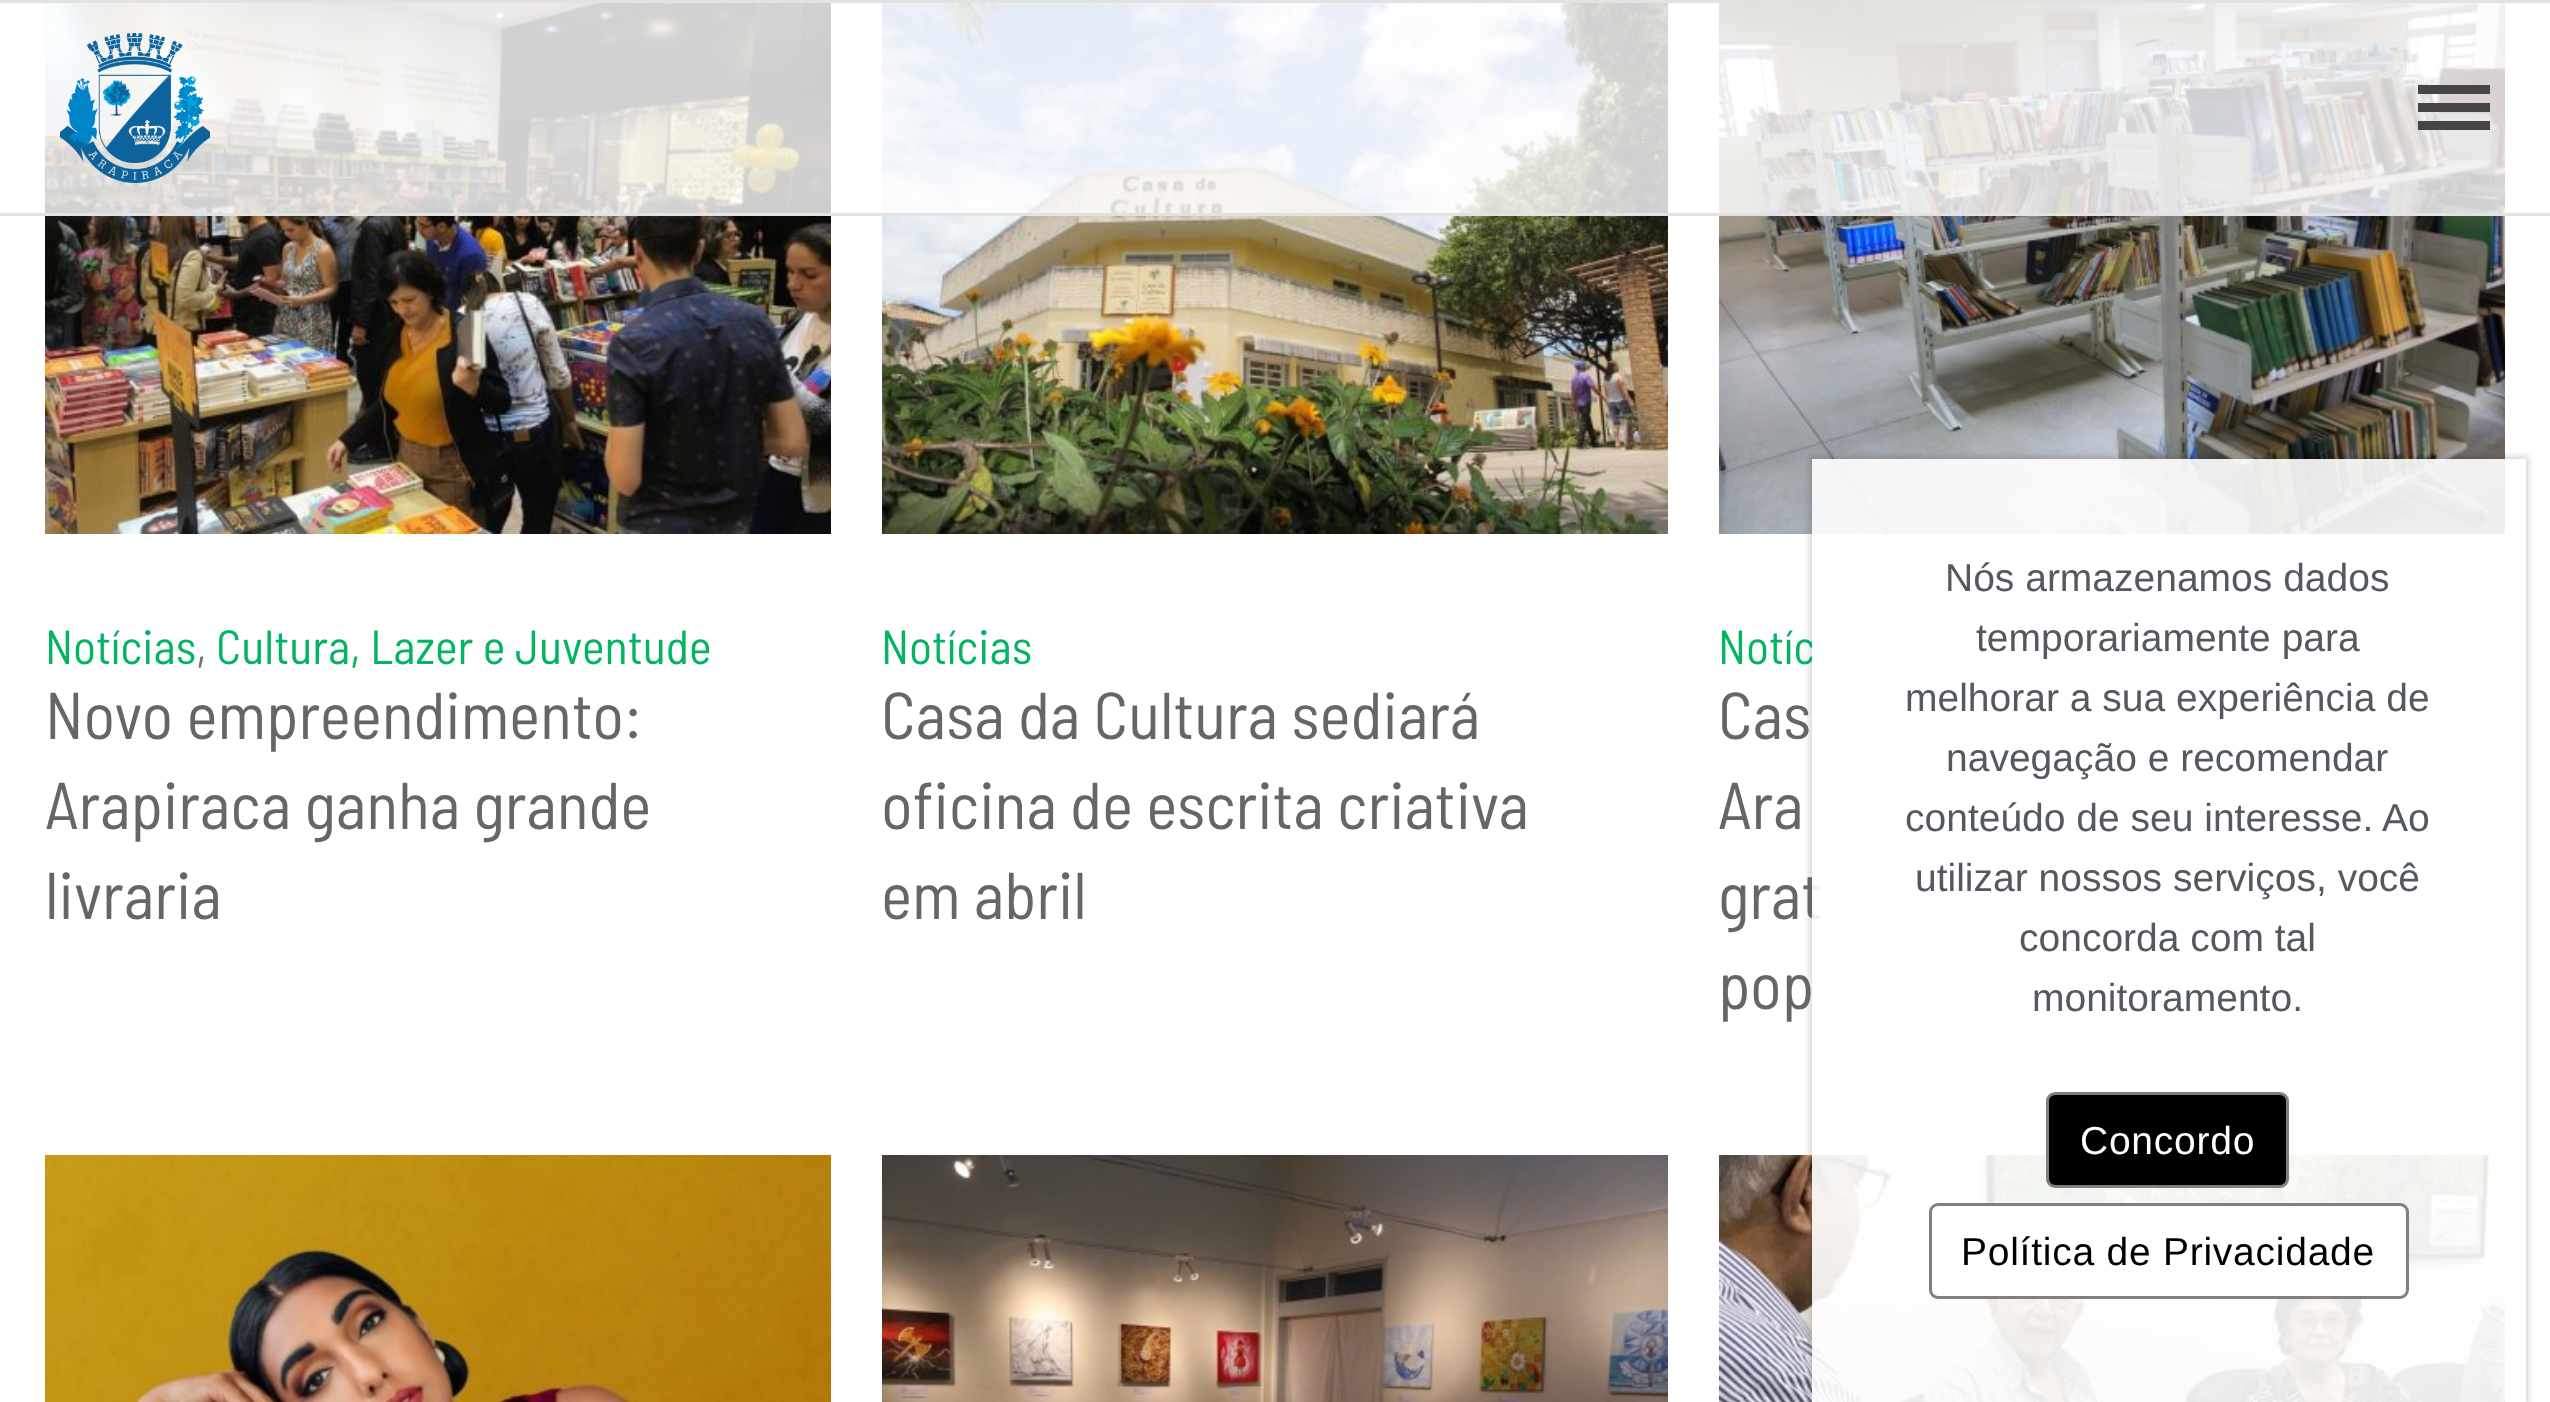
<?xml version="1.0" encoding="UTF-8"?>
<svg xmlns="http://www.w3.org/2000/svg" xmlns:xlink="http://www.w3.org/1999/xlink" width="2550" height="1402">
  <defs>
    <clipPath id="clip1"><path d="M 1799 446 h 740 v 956 h -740 z m 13 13 h 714 v 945 h -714 z" clip-rule="evenodd" /></clipPath>
  </defs>
  <rect width="100%" height="100%" fill="#ffffff" />
  <image x="45" y="3" width="786" height="531" xlink:href="image2.png" />
  <image x="882" y="3" width="786" height="531" xlink:href="image3.png" />
  <image x="1719" y="3" width="786" height="531" xlink:href="image4.png" />
  <rect x="45" y="3" width="2460" height="210" fill="#ffffff" fill-opacity="0.8" />
  <rect width="2550" height="3" fill="#e2e2e2" />
  <rect y="213" width="2550" height="3" fill="#e2e2e2" />
  <image x="60" y="33" width="150" height="150" xlink:href="image1.png" />
  <path d="M 2418 85 v 9 h 72 v -9 z m 0 18 v 9 h 72 v -9 z m 0 18 v 9 h 72 v -9 z" fill="#454545" />
  <image x="45" y="1155" width="786" height="247" xlink:href="image5.png" />
  <image x="882" y="1155" width="786" height="247" xlink:href="image6.png" />
  <image x="1719" y="1155" width="786" height="247" xlink:href="image7.png" />
  <g clip-path="url(#clip1)">
    <rect x="1809" y="456" width="720" height="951" fill="#000000" fill-opacity="0.15" filter="blur(3px)" />
  </g>
  <text x="45" y="664" style="font-family: Barlow Semi Condensed; font-size: 48px; fill: #04b462">Notícias</text>
  <text x="196" y="664" style="font-family: Barlow Semi Condensed; font-size: 48px; fill: #777777">,</text>
  <text x="216" y="664" style="font-family: Barlow Semi Condensed; font-size: 48px; fill: #04b462">Cultura, Lazer e Juventude</text>
  <text x="45" y="739" style="font-family: Barlow Semi Condensed; font-size: 66px; fill: #666666">Novo empreendimento:</text>
  <text x="45" y="829" style="font-family: Barlow Semi Condensed; font-size: 66px; fill: #666666">Arapiraca ganha grande</text>
  <text x="45" y="919" style="font-family: Barlow Semi Condensed; font-size: 66px; fill: #666666">livraria</text>
  <text x="881" y="664" style="font-family: Barlow Semi Condensed; font-size: 48px; fill: #04b462">Notícias</text>
  <text x="881" y="739" style="font-family: Barlow Semi Condensed; font-size: 66px; fill: #666666">Casa da Cultura sediará</text>
  <text x="881" y="829" style="font-family: Barlow Semi Condensed; font-size: 66px; fill: #666666">oficina de escrita criativa</text>
  <text x="881" y="919" style="font-family: Barlow Semi Condensed; font-size: 66px; fill: #666666">em abril</text>
  <text x="1718" y="664" style="font-family: Barlow Semi Condensed; font-size: 48px; fill: #04b462">Notíc</text>
  <text x="1718" y="739" style="font-family: Barlow Semi Condensed; font-size: 66px; fill: #666666">Cas</text>
  <text x="1718" y="829" style="font-family: Barlow Semi Condensed; font-size: 66px; fill: #666666">Ara</text>
  <text x="1718" y="919" style="font-family: Barlow Semi Condensed; font-size: 66px; fill: #666666">grat</text>
  <text x="1718" y="1009" style="font-family: Barlow Semi Condensed; font-size: 66px; fill: #666666">pop</text>
  <rect x="1812" y="459" width="693" height="943" fill="#ffffff" fill-opacity="0.9" />
  <text x="1945" y="591" style="font-family: Liberation Sans; font-size: 39px; fill: #54595f">Nós armazenamos dados</text>
  <text x="1976" y="651" style="font-family: Liberation Sans; font-size: 39px; fill: #54595f">temporariamente para</text>
  <text x="1905" y="711" style="font-family: Liberation Sans; font-size: 39px; fill: #54595f">melhorar a sua experiência de</text>
  <text x="1946" y="771" style="font-family: Liberation Sans; font-size: 39px; fill: #54595f">navegação e recomendar</text>
  <text x="1905" y="831" style="font-family: Liberation Sans; font-size: 39px; fill: #54595f">conteúdo de seu interesse. Ao</text>
  <text x="1915" y="891" style="font-family: Liberation Sans; font-size: 39px; fill: #54595f">utilizar nossos serviços, você</text>
  <text x="2019" y="951" style="font-family: Liberation Sans; font-size: 39px; fill: #54595f">concorda com tal</text>
  <text x="2032" y="1011" style="font-family: Liberation Sans; font-size: 39px; fill: #54595f">monitoramento.</text>
  <rect x="2047.5" y="1093.5" width="240" height="93" rx="7.5" fill="#000000" stroke="#808080" stroke-width="3" />
  <text x="2080" y="1154" style="font-family: Liberation Sans; font-size: 39px; letter-spacing: 0.75px; fill: #ffffff">Concordo</text>
  <rect x="1930.5" y="1204.5" width="477" height="93" rx="7.5" fill="#ffffff" stroke="#808080" stroke-width="3" />
  <text x="1961" y="1265" style="font-family: Liberation Sans; font-size: 39px; letter-spacing: 0.75px; fill: #000000">Política de Privacidade</text>
</svg>
